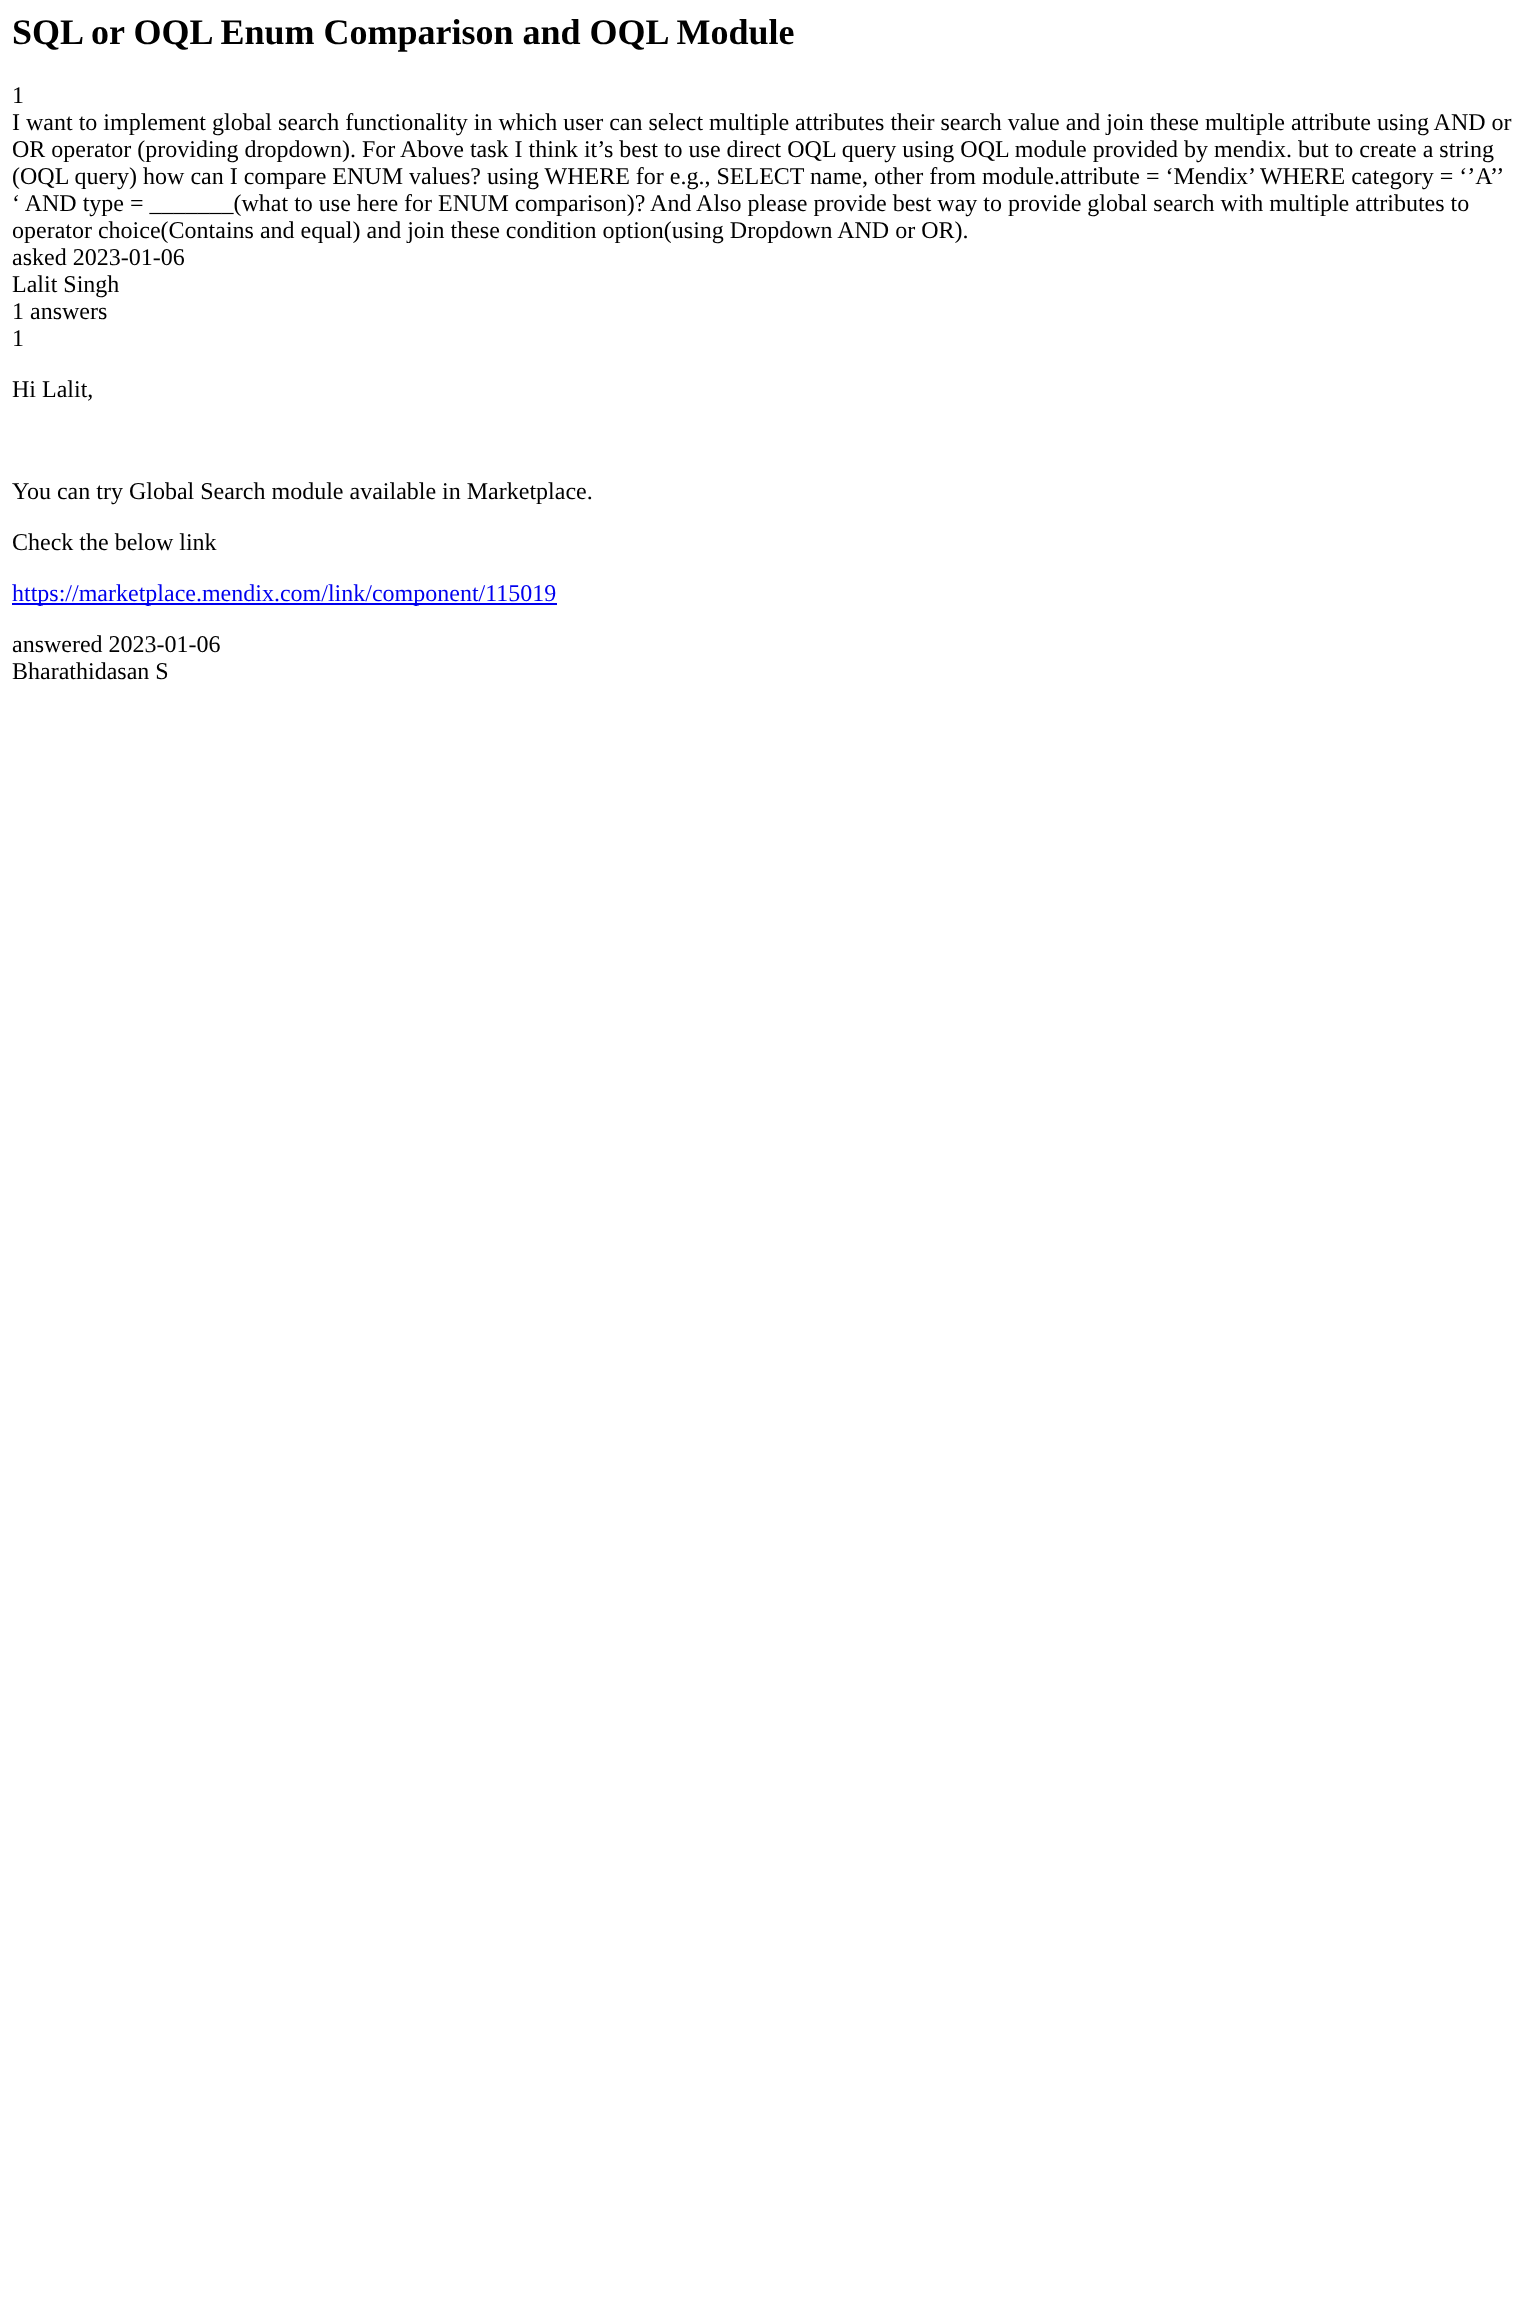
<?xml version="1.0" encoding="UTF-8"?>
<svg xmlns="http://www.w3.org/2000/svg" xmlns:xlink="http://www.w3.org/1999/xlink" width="1525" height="2301">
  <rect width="100%" height="100%" fill="#ffffff" />
  <rect x="12" y="603" width="545" height="2" fill="#0000ee" />
  <text x="12" y="44" style="font-family: Liberation Serif; font-size: 36px; font-weight: bold; fill: #000000">SQL or OQL Enum Comparison and OQL Module</text>
  <text x="12" y="103" style="font-family: Liberation Serif; font-size: 24px; fill: #000000">1</text>
  <text x="12" y="130" style="font-family: Liberation Serif; font-size: 24px; fill: #000000">I want to implement global search functionality in which user can select multiple attributes their search value and join these multiple attribute using AND or</text>
  <text x="12" y="157" style="font-family: Liberation Serif; font-size: 24px; fill: #000000">OR operator (providing dropdown). For Above task I think it’s best to use direct OQL query using OQL module provided by mendix. but to create a string</text>
  <text x="12" y="184" style="font-family: Liberation Serif; font-size: 24px; fill: #000000">(OQL query) how can I compare ENUM values? using WHERE for e.g., SELECT name, other from module.attribute = ‘Mendix’ WHERE category = ‘’A’’</text>
  <text x="12" y="211" style="font-family: Liberation Serif; font-size: 24px; fill: #000000">‘ AND type = _______(what to use here for ENUM comparison)? And Also please provide best way to provide global search with multiple attributes to</text>
  <text x="12" y="238" style="font-family: Liberation Serif; font-size: 24px; fill: #000000">operator choice(Contains and equal) and join these condition option(using Dropdown AND or OR).</text>
  <text x="12" y="265" style="font-family: Liberation Serif; font-size: 24px; fill: #000000">asked 2023-01-06</text>
  <text x="12" y="292" style="font-family: Liberation Serif; font-size: 24px; fill: #000000">Lalit Singh</text>
  <text x="12" y="319" style="font-family: Liberation Serif; font-size: 24px; fill: #000000">1 answers</text>
  <text x="12" y="346" style="font-family: Liberation Serif; font-size: 24px; fill: #000000">1</text>
  <text x="12" y="397" style="font-family: Liberation Serif; font-size: 24px; fill: #000000">Hi Lalit,</text>
  <text x="12" y="499" style="font-family: Liberation Serif; font-size: 24px; fill: #000000">You can try Global Search module available in Marketplace.</text>
  <text x="12" y="550" style="font-family: Liberation Serif; font-size: 24px; fill: #000000">Check the below link</text>
  <text x="12" y="601" style="font-family: Liberation Serif; font-size: 24px; fill: #0000ee">https://marketplace.mendix.com/link/component/115019</text>
  <text x="12" y="652" style="font-family: Liberation Serif; font-size: 24px; fill: #000000">answered 2023-01-06</text>
  <text x="12" y="679" style="font-family: Liberation Serif; font-size: 24px; fill: #000000">Bharathidasan S</text>
</svg>
